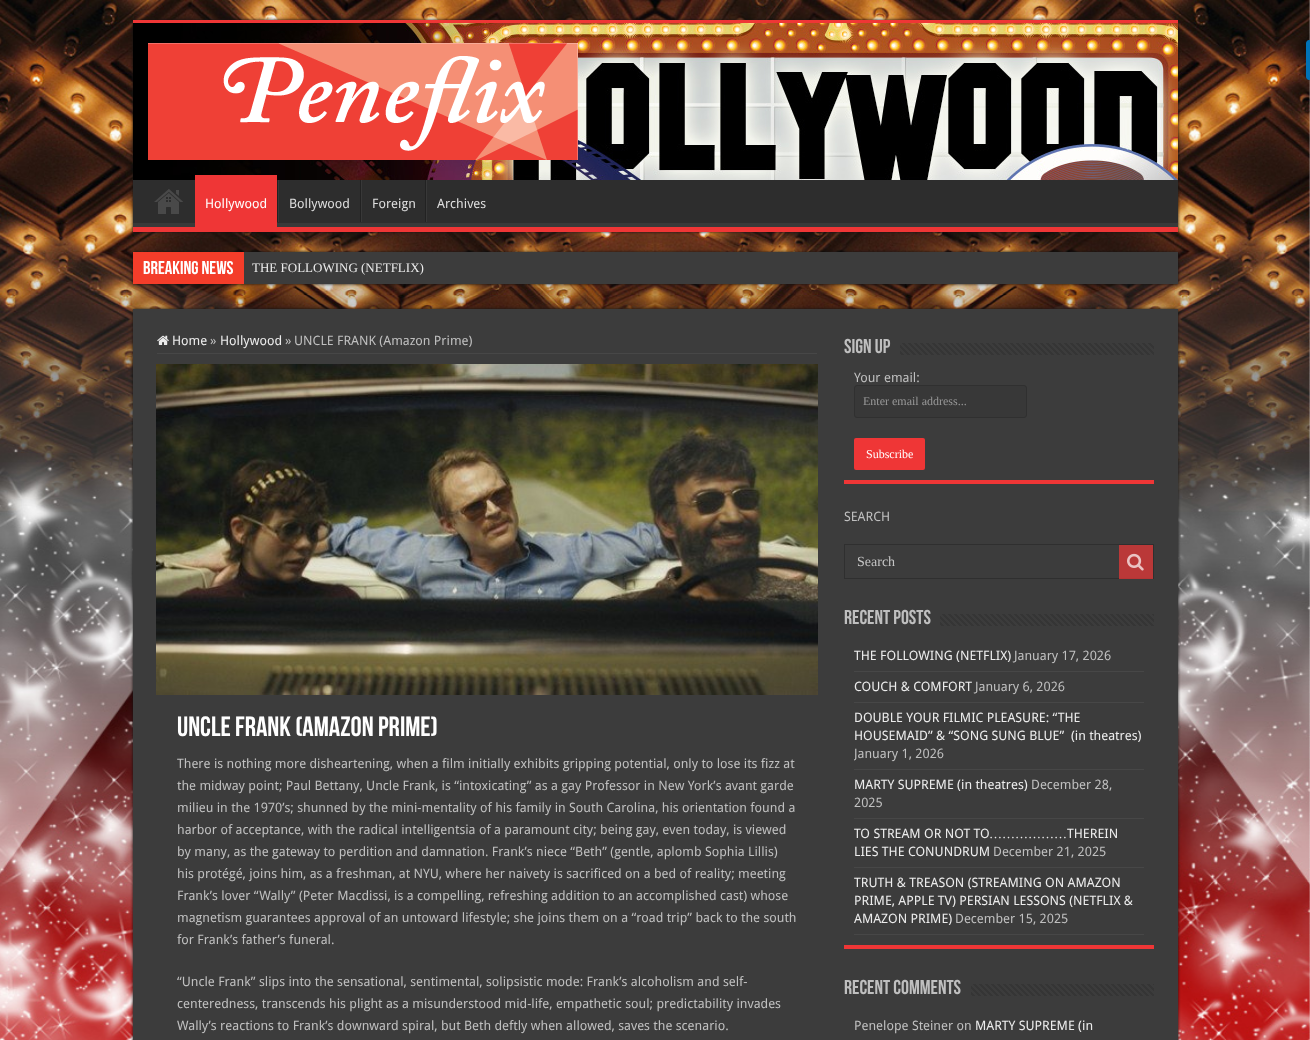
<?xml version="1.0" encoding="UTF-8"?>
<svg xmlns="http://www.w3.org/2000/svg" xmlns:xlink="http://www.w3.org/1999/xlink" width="1310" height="1040">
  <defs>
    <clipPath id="clip1"><rect x="133" y="180" width="1045" height="47" /></clipPath>
    <clipPath id="clip2"><rect x="854" y="703" width="290" height="66" /></clipPath>
  </defs>
  <rect width="100%" height="100%" fill="#ffffff" />
  <image x="1309" y="0" width="1" height="1040" xlink:href="image1.png" />
  <image x="0" y="0" width="1310" height="1040" xlink:href="image2.png" />
  <rect x="1306" y="44" width="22" height="40" rx="3" fill="#000000" fill-opacity="0.2" filter="blur(5px)" />
  <path d="M 1309 40 h 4 v 40 h -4 c -1.5 0 -3 -1.5 -3 -3 v -34 c 0 -1.5 1.5 -3 3 -3 z" fill="#0073b7" />
  <rect x="133" y="20" width="1045" height="212" fill="#141414" filter="blur(1.5px)" />
  <image x="133" y="23" width="1045" height="157" xlink:href="image3.png" />
  <rect x="133" y="20" width="1045" height="3" fill="#ef3636" />
  <image x="148" y="43" width="430" height="117" xlink:href="image4.png" />
  <rect x="133" y="180" width="1045" height="43" fill="#2d2d2d" />
  <g clip-path="url(#clip1)">
    <path d="M 34 81 h 1243 v 245 h -1243 z m 98 93 h 1046 v 40 c 0 1 1 9 -1 9 h -1045 l -1 -1 v -48 z" fill="#393939" fill-rule="evenodd" />
  </g>
  <rect x="133" y="227" width="1045" height="5" fill="#ef3636" />
  <image x="154" y="189" width="29" height="25" xlink:href="image5.png" />
  <rect x="195" y="175" width="82" height="52" fill="#ef3636" />
  <rect x="277" y="180" width="1" height="42" fill="#222222" />
  <rect x="278" y="180" width="1" height="42" fill="#383838" />
  <rect x="360" y="180" width="1" height="42" fill="#222222" />
  <rect x="361" y="180" width="1" height="42" fill="#383838" />
  <rect x="425" y="180" width="1" height="42" fill="#222222" />
  <rect x="426" y="180" width="1" height="42" fill="#383838" />
  <rect x="133" y="252" width="1045" height="32" fill="#141414" filter="blur(1.5px)" />
  <rect x="244" y="252" width="934" height="32" fill="#3c3c3c" />
  <rect x="133" y="252" width="111" height="32" fill="#f43d2a" />
  <rect x="133" y="309" width="1045" height="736" fill="#141414" filter="blur(1.5px)" />
  <rect x="133" y="309" width="1045" height="731" fill="#3c3c3c" />
  <rect x="157" y="353" width="660" height="1" fill="#474747" />
  <image x="157" y="335" width="12" height="10" xlink:href="image6.png" />
  <image x="156" y="364" width="662" height="331" xlink:href="image7.png" />
  <image x="900" y="343" width="254" height="12" xlink:href="image8.png" />
  <rect x="844" y="480" width="310" height="4" fill="#ef3636" />
  <rect x="854.5" y="385.5" width="172" height="32" rx="2.5" fill="#383838" stroke="#303030" />
  <rect x="854" y="438" width="71" height="32" rx="2" fill="#ef3636" />
  <rect x="844.5" y="544.5" width="309" height="34" fill="none" stroke="#2f2f2f" />
  <rect x="1119" y="545" width="34" height="34" fill="#ef3636" fill-opacity="0.7" />
  <image x="1127" y="553" width="17" height="18" xlink:href="image9.png" />
  <image x="940" y="614" width="214" height="12" xlink:href="image10.png" />
  <rect x="844" y="945" width="310" height="4" fill="#ef3636" />
  <rect x="854" y="671" width="290" height="1" fill="#474747" />
  <rect x="854" y="702" width="290" height="1" fill="#474747" />
  <rect x="854" y="769" width="290" height="1" fill="#474747" />
  <rect x="854" y="818" width="290" height="1" fill="#474747" />
  <rect x="854" y="867" width="290" height="1" fill="#474747" />
  <rect x="854" y="934" width="290" height="1" fill="#474747" />
  <image x="971" y="984" width="183" height="12" xlink:href="image11.png" />
  <text x="205" y="208" style="font-family: Droid Sans; font-size: 13px; fill: #ffffff">Hollywood</text>
  <text x="289" y="208" style="font-family: Droid Sans; font-size: 13px; fill: #dddddd">Bollywood</text>
  <text x="372" y="208" style="font-family: Droid Sans; font-size: 13px; fill: #dddddd">Foreign</text>
  <text x="437" y="208" style="font-family: Droid Sans; font-size: 13px; fill: #dddddd">Archives</text>
  <text x="143" y="274" style="font-family: Bebas Neue; font-size: 18.5px; font-weight: bold; fill: #ffffff">Breaking News</text>
  <text x="252" y="272" style="font-family: Liberation Serif; font-size: 13px; fill: #ececec">THE FOLLOWING (NETFLIX)</text>
  <text x="172" y="345" style="font-family: Droid Sans; font-size: 13px; fill: #ececec">Home</text>
  <text x="210" y="345" style="font-family: Droid Sans; font-size: 13px; fill: #bfbfbf">»</text>
  <text x="220" y="345" style="font-family: Droid Sans; font-size: 13px; fill: #ececec">Hollywood</text>
  <text x="285" y="345" style="font-family: Droid Sans; font-size: 13px; fill: #bfbfbf">»</text>
  <text x="294" y="345" style="font-family: Droid Sans; font-size: 13px; fill: #bfbfbf">UNCLE FRANK (Amazon Prime)</text>
  <text x="177" y="736" style="font-family: Bebas Neue; font-size: 28px; font-weight: bold; fill: #ffffff">UNCLE FRANK (Amazon Prime)</text>
  <text x="177" y="768" style="font-family: Droid Sans; font-size: 13px; fill: #bfbfbf">There is nothing more disheartening, when a film initially exhibits gripping potential, only to lose its fizz at</text>
  <text x="177" y="790" style="font-family: Droid Sans; font-size: 13px; fill: #bfbfbf">the midway point; Paul Bettany, Uncle Frank, is “intoxicating” as a gay Professor in New York’s avant garde</text>
  <text x="177" y="812" style="font-family: Droid Sans; font-size: 13px; fill: #bfbfbf">milieu in the 1970’s; shunned by the mini-mentality of his family in South Carolina, his orientation found a</text>
  <text x="177" y="834" style="font-family: Droid Sans; font-size: 13px; fill: #bfbfbf">harbor of acceptance, with the radical intelligentsia of a paramount city; being gay, even today, is viewed</text>
  <text x="177" y="856" style="font-family: Droid Sans; font-size: 13px; fill: #bfbfbf">by many, as the gateway to perdition and damnation. Frank’s niece “Beth” (gentle, aplomb Sophia Lillis)</text>
  <text x="177" y="878" style="font-family: Droid Sans; font-size: 13px; fill: #bfbfbf">his protégé, joins him, as a freshman, at NYU, where her naivety is sacrificed on a bed of reality; meeting</text>
  <text x="177" y="900" style="font-family: Droid Sans; font-size: 13px; fill: #bfbfbf">Frank’s lover “Wally” (Peter Macdissi, is a compelling, refreshing addition to an accomplished cast) whose</text>
  <text x="177" y="922" style="font-family: Droid Sans; font-size: 13px; fill: #bfbfbf">magnetism guarantees approval of an untoward lifestyle; she joins them on a “road trip” back to the south</text>
  <text x="177" y="944" style="font-family: Droid Sans; font-size: 13px; fill: #bfbfbf">for Frank’s father’s funeral.</text>
  <text x="177" y="986" style="font-family: Droid Sans; font-size: 13px; fill: #bfbfbf">“Uncle Frank” slips into the sensational, sentimental, solipsistic mode: Frank’s alcoholism and self-</text>
  <text x="177" y="1008" style="font-family: Droid Sans; font-size: 13px; fill: #bfbfbf">centeredness, transcends his plight as a misunderstood mid-life, empathetic soul; predictability invades</text>
  <text x="177" y="1030" style="font-family: Droid Sans; font-size: 13px; fill: #bfbfbf">Wally’s reactions to Frank’s downward spiral, but Beth deftly when allowed, saves the scenario.</text>
  <text x="844" y="353" style="font-family: Bebas Neue; font-size: 20px; font-weight: bold; fill: #bfbfbf">Sign Up</text>
  <text x="854" y="382" style="font-family: Droid Sans; font-size: 13px; fill: #bfbfbf">Your email:</text>
  <text x="863" y="405" style="font-family: Liberation Serif; font-size: 12px; fill: #999999">Enter email address...</text>
  <text x="866" y="458" style="font-family: Liberation Serif; font-size: 12px; fill: #ffffff">Subscribe</text>
  <text x="844" y="521" style="font-family: Droid Sans; font-size: 13px; fill: #bfbfbf">SEARCH</text>
  <text x="857" y="566" style="font-family: Liberation Serif; font-size: 14px; fill: #c5c5c5">Search</text>
  <text x="844" y="624" style="font-family: Bebas Neue; font-size: 20px; font-weight: bold; fill: #bfbfbf">Recent Posts</text>
  <text x="854" y="660" style="font-family: Droid Sans; font-size: 13px; fill: #ececec">THE FOLLOWING (NETFLIX)</text>
  <text x="1014" y="660" style="font-family: Droid Sans; font-size: 13px; fill: #bfbfbf">January 17, 2026</text>
  <text x="854" y="691" style="font-family: Droid Sans; font-size: 13px; fill: #ececec">COUCH &amp; COMFORT</text>
  <text x="975" y="691" style="font-family: Droid Sans; font-size: 13px; fill: #bfbfbf">January 6, 2026</text>
  <text x="854" y="722" style="font-family: Droid Sans; font-size: 13px; fill: #ececec">DOUBLE YOUR FILMIC PLEASURE: “THE</text>
  <text x="854" y="740" style="font-family: Droid Sans; font-size: 13px; fill: #ececec" xml:space="preserve">HOUSEMAID” &amp; “SONG SUNG BLUE”  (in theatres)</text>
  <g clip-path="url(#clip2)">
    <text x="854" y="758" style="font-family: Droid Sans; font-size: 13px; fill: #bfbfbf">January 1, 2026</text>
  </g>
  <text x="854" y="789" style="font-family: Droid Sans; font-size: 13px; fill: #ececec">MARTY SUPREME (in theatres)</text>
  <text x="1031" y="789" style="font-family: Droid Sans; font-size: 13px; fill: #bfbfbf">December 28,</text>
  <text x="854" y="807" style="font-family: Droid Sans; font-size: 13px; fill: #bfbfbf">2025</text>
  <text x="854" y="838" style="font-family: Droid Sans; font-size: 13px; fill: #ececec">TO STREAM OR NOT TO</text>
  <text x="989" y="838" style="font-family: Liberation Serif; font-size: 13px; fill: #ececec">………………</text>
  <text x="1067" y="838" style="font-family: Droid Sans; font-size: 13px; fill: #ececec">THEREIN</text>
  <text x="854" y="856" style="font-family: Droid Sans; font-size: 13px; fill: #ececec">LIES THE CONUNDRUM</text>
  <text x="993" y="856" style="font-family: Droid Sans; font-size: 13px; fill: #bfbfbf">December 21, 2025</text>
  <text x="854" y="887" style="font-family: Droid Sans; font-size: 13px; fill: #ececec">TRUTH &amp; TREASON (STREAMING ON AMAZON</text>
  <text x="854" y="905" style="font-family: Droid Sans; font-size: 13px; fill: #ececec">PRIME, APPLE TV) PERSIAN LESSONS (NETFLIX &amp;</text>
  <text x="854" y="923" style="font-family: Droid Sans; font-size: 13px; fill: #ececec">AMAZON PRIME)</text>
  <text x="955" y="923" style="font-family: Droid Sans; font-size: 13px; fill: #bfbfbf">December 15, 2025</text>
  <text x="844" y="994" style="font-family: Bebas Neue; font-size: 20px; font-weight: bold; fill: #bfbfbf">Recent Comments</text>
  <text x="854" y="1030" style="font-family: Droid Sans; font-size: 13px; fill: #bfbfbf">Penelope Steiner on</text>
  <text x="975" y="1030" style="font-family: Droid Sans; font-size: 13px; fill: #ececec">MARTY SUPREME (in</text>
</svg>
